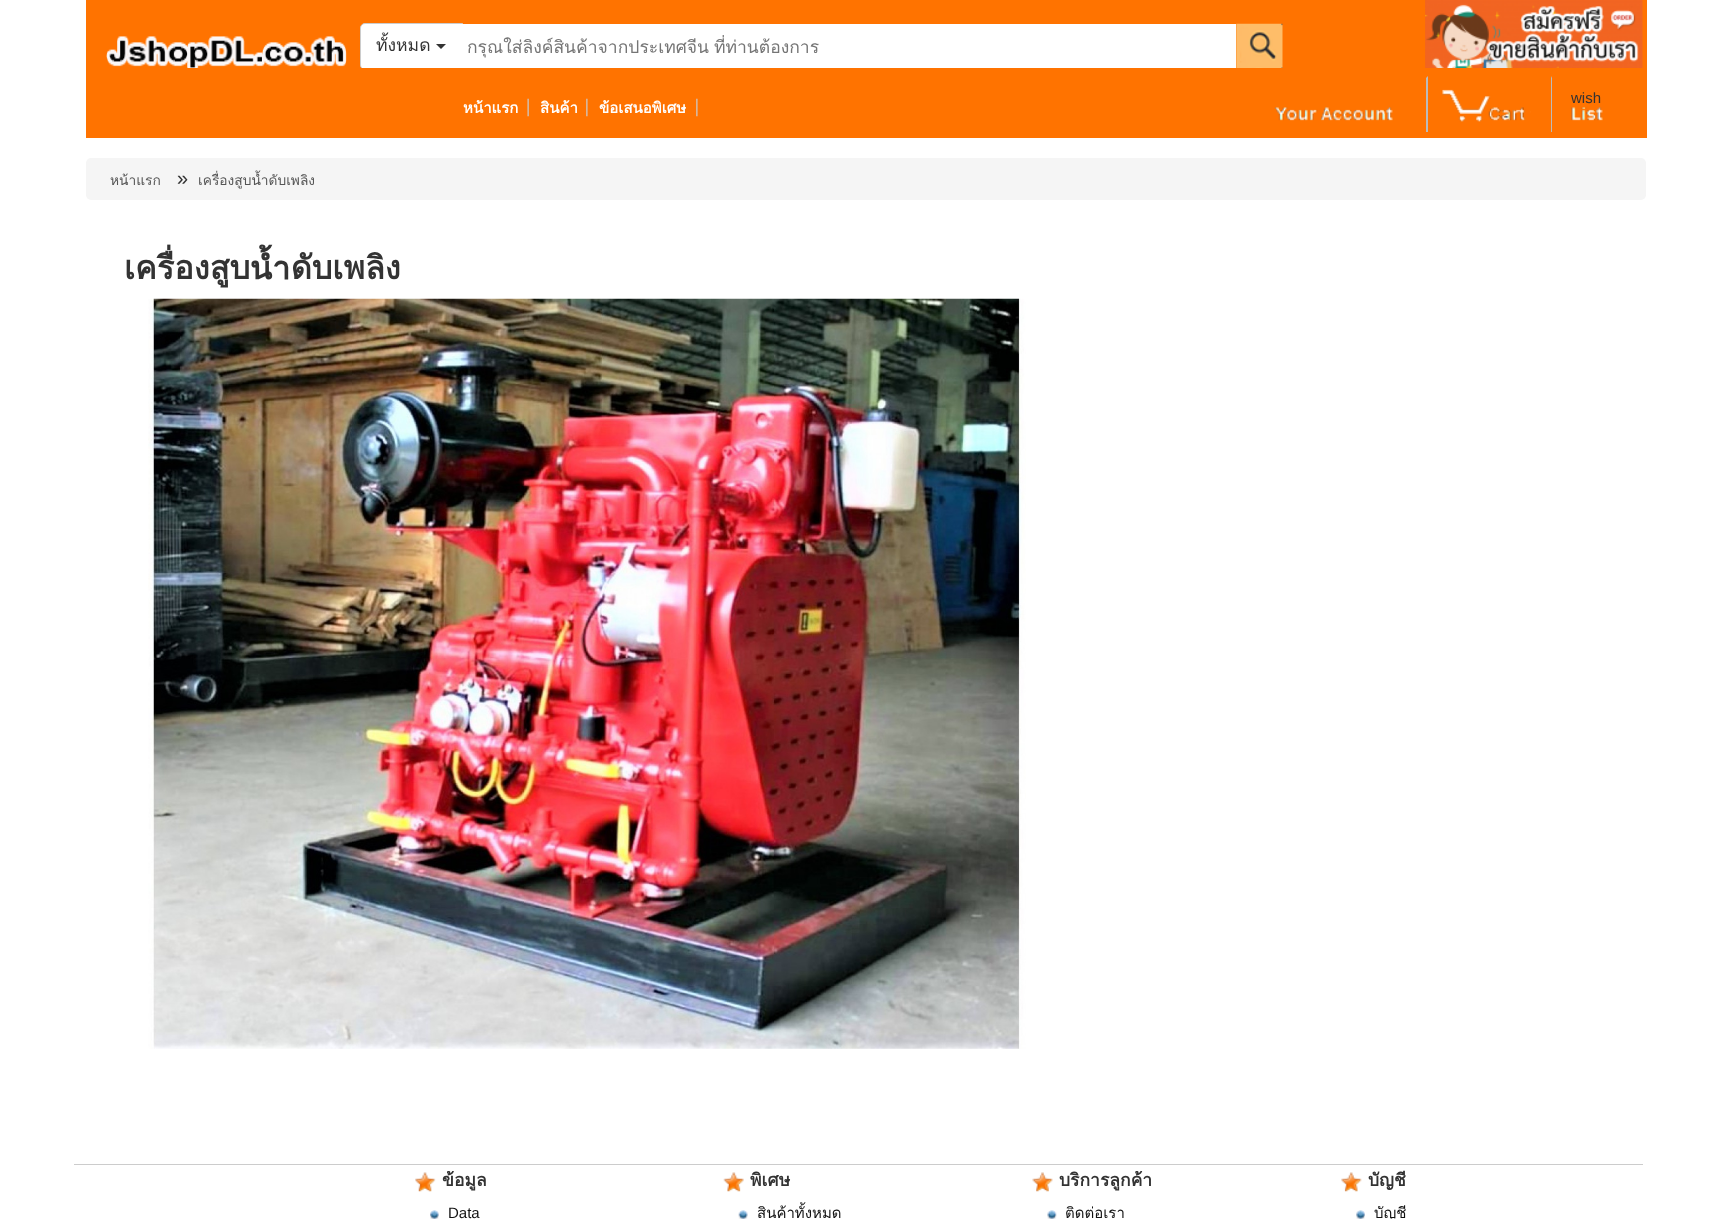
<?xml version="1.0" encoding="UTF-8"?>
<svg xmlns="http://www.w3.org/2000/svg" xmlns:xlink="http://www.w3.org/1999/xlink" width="1732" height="1219">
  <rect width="100%" height="100%" fill="#ffffff" />
  <rect x="86" width="1561" height="68" fill="#ff7300" />
  <image x="106" y="36" width="241" height="32" xlink:href="image1.png" />
  <path d="M 365 23.5 h 97.5 v 46 h -97.5 c -2.5 0 -4.5 -2 -4.5 -4.5 v -37 c 0 -2.5 2 -4.5 4.5 -4.5 z" fill="#ffffff" stroke="#cccccc" />
  <path d="M 436 44 h 10 l -5 5 z" fill="#333333" />
  <rect x="462" y="24" width="774" height="44" fill="#ffffff" />
  <image x="1236" y="23" width="47" height="45" xlink:href="image2.png" />
  <image x="1425" y="0" width="218" height="68" xlink:href="image3.png" />
  <rect x="86" y="68" width="1561" height="70" fill="#ff7300" />
  <image x="1274" y="107" width="119" height="14" xlink:href="image4.png" />
  <path d="M 1428 76 v 56 h -2 v -54 z" fill="#bbbbbb" />
  <image x="1442" y="89" width="89" height="33" xlink:href="image5.png" />
  <path d="M 1552 76 v 56 h -1 v -54 z" fill="#bbbbbb" />
  <image x="1571" y="107" width="32" height="14" xlink:href="image6.png" />
  <image x="527" y="98" width="2" height="19" xlink:href="image7.png" />
  <image x="586" y="98" width="2" height="19" xlink:href="image8.png" />
  <image x="696" y="98" width="2" height="19" xlink:href="image8.png" />
  <rect x="86" y="158" width="1560" height="42" rx="5" fill="#f5f5f5" />
  <image x="148" y="298" width="878" height="751" xlink:href="image9.png" />
  <rect x="74" y="1164" width="1569" height="1" fill="#cccccc" />
  <image x="415" y="1172" width="21" height="20" xlink:href="image10.png" />
  <image x="430" y="1210" width="9" height="9" xlink:href="image11.png" />
  <image x="723" y="1172" width="21" height="20" xlink:href="image12.png" />
  <image x="738" y="1210" width="10" height="9" xlink:href="image13.png" />
  <image x="1032" y="1172" width="21" height="20" xlink:href="image14.png" />
  <image x="1047" y="1210" width="10" height="9" xlink:href="image15.png" />
  <image x="1341" y="1172" width="21" height="20" xlink:href="image16.png" />
  <image x="1356" y="1210" width="9" height="9" xlink:href="image17.png" />
  <text x="376" y="51" style="font-family: Loma; font-size: 17.5px; fill: #333333">ทั้งหมด</text>
  <text x="467" y="53" word-spacing="-1" style="font-family: Loma; font-size: 17.5px; fill: #757575">กรุณใส่ลิงค์สินค้าจากประเทศจีน ที่ท่านต้องการ</text>
  <text x="1571" y="103" style="font-family: Liberation Sans; font-size: 15px; fill: #333333">wish</text>
  <text x="463" y="113" style="font-family: Loma; font-size: 15px; font-weight: bold; fill: #ffffff">หน้าแรก</text>
  <text x="540" y="113" style="font-family: Loma; font-size: 15px; font-weight: bold; fill: #ffffff">สินค้า</text>
  <text x="599" y="113" style="font-family: Loma; font-size: 15px; font-weight: bold; fill: #ffffff">ข้อเสนอพิเศษ</text>
  <text x="110" y="185" style="font-family: Loma; font-size: 13.75px; fill: #555555">หน้าแรก</text>
  <text x="177" y="185" style="font-family: Liberation Sans; font-size: 20px; fill: #333333">»</text>
  <text x="198" y="185" style="font-family: Loma; font-size: 13.75px; fill: #555555">เครื่องสูบน้ำดับเพลิง</text>
  <text x="124" y="279" style="font-family: Loma; font-size: 32.5px; font-weight: bold; fill: #333333">เครื่องสูบน้ำดับเพลิง</text>
  <text x="442" y="1186" style="font-family: Loma; font-size: 17.5px; font-weight: bold; fill: #333333">ข้อมูล</text>
  <text x="448" y="1218" style="font-family: Liberation Sans; font-size: 15px; fill: #111111">Data</text>
  <text x="750" y="1186" style="font-family: Loma; font-size: 17.5px; font-weight: bold; fill: #333333">พิเศษ</text>
  <text x="757" y="1218" style="font-family: Loma; font-size: 15px; fill: #111111">สินค้าทั้งหมด</text>
  <text x="1059" y="1186" style="font-family: Loma; font-size: 17.5px; font-weight: bold; fill: #333333">บริการลูกค้า</text>
  <text x="1065" y="1218" style="font-family: Loma; font-size: 15px; fill: #111111">ติดต่อเรา</text>
  <text x="1368" y="1186" style="font-family: Loma; font-size: 17.5px; font-weight: bold; fill: #333333">บัญชี</text>
  <text x="1374" y="1218" style="font-family: Loma; font-size: 15px; fill: #111111">บัญชี</text>
</svg>
